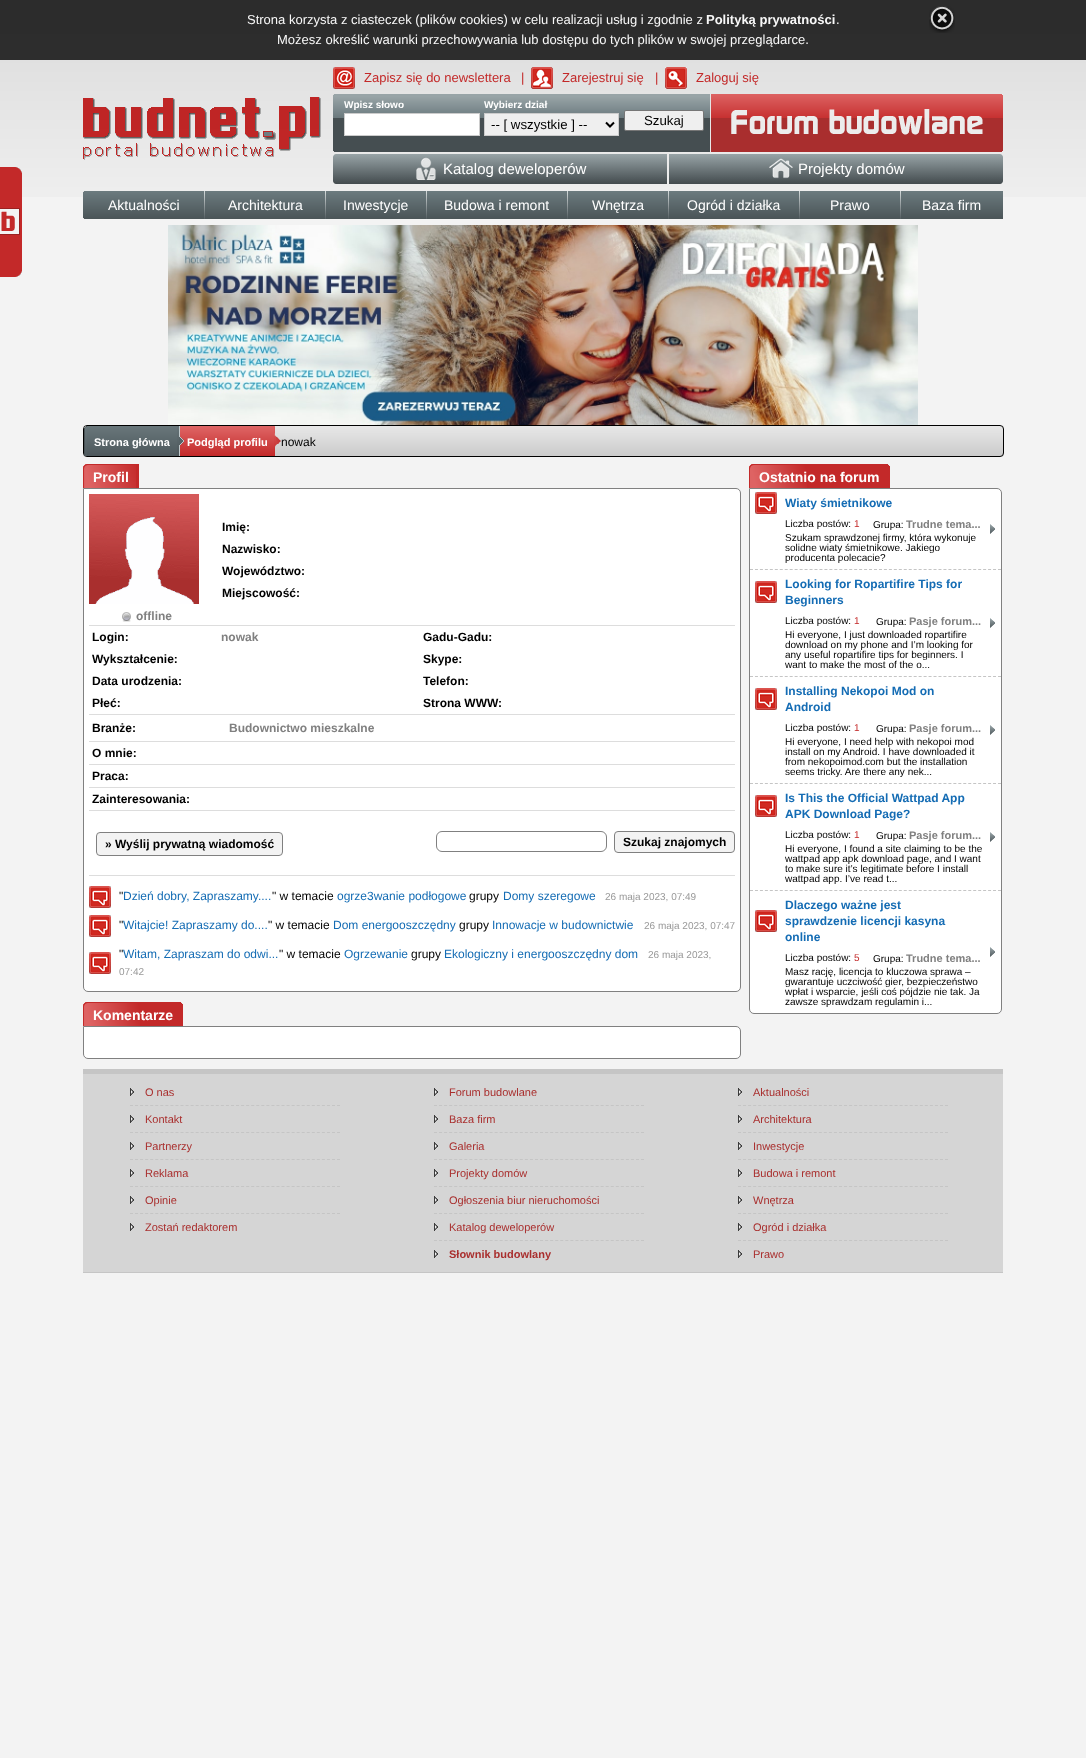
<?xml version="1.0" encoding="UTF-8"?>
<svg xmlns="http://www.w3.org/2000/svg" xmlns:xlink="http://www.w3.org/1999/xlink" width="1086" height="1758">
  <defs>
    <linearGradient id="g1" gradientUnits="userSpaceOnUse" x1="500" y1="154" x2="500" y2="184"><stop offset="0" stop-color="#98a4a7" /><stop offset="1" stop-color="#434b4e" /></linearGradient>
    <linearGradient id="g2" gradientUnits="userSpaceOnUse" x1="836" y1="154" x2="836" y2="184"><stop offset="0" stop-color="#98a4a7" /><stop offset="1" stop-color="#434b4e" /></linearGradient>
  </defs>
  <rect width="100%" height="100%" fill="#f3f3f3" />
  <image x="0" y="0" width="1086" height="197" xlink:href="image1.png" />
  <rect width="1086" height="60" fill="#000000" fill-opacity="0.8" />
  <image x="929" y="6" width="26" height="27" xlink:href="image2.png" />
  <image x="0" y="167" width="22" height="110" xlink:href="image3.png" />
  <image x="333" y="67" width="22" height="22" xlink:href="image4.png" />
  <image x="531" y="67" width="22" height="22" xlink:href="image5.png" />
  <image x="665" y="67" width="22" height="22" xlink:href="image6.png" />
  <image x="83" y="97" width="238" height="63" xlink:href="image7.png" />
  <image x="333" y="94" width="1" height="58" xlink:href="image8.png" />
  <image x="334" y="94" width="376" height="58" xlink:href="image9.png" />
  <rect x="344.5" y="113.5" width="135" height="22" fill="#ffffff" stroke="#cccccc" />
  <rect x="484.5" y="113.5" width="134" height="22" fill="#efefef" stroke="#cccccc" />
  <path d="M 606 122.5 l 4 4 l 4 -4" fill="none" stroke="#000000" stroke-width="2" />
  <rect x="624.5" y="110.5" width="79" height="20" rx="1.5" fill="#efefef" stroke="#767676" />
  <image x="711" y="94" width="292" height="58" xlink:href="image10.png" />
  <path d="M 336 154 h 331 v 30 h -331 c -1.5 0 -3 -1.5 -3 -3 v -24 c 0 -1.5 1.5 -3 3 -3 z" fill="url(#g1)" />
  <image x="416" y="157" width="20" height="23" xlink:href="image11.png" />
  <path d="M 669 154 h 331 c 1.5 0 3 1.5 3 3 v 24 c 0 1.5 -1.5 3 -3 3 h -331 z" fill="url(#g2)" />
  <image x="769" y="158" width="24" height="21" xlink:href="image12.png" />
  <image x="204" y="191" width="697" height="28" xlink:href="image13.png" />
  <image x="83" y="191" width="1" height="28" xlink:href="image14.png" />
  <image x="84" y="191" width="120" height="28" xlink:href="image15.png" />
  <image x="205" y="191" width="120" height="28" xlink:href="image15.png" />
  <image x="326" y="191" width="100" height="28" xlink:href="image16.png" />
  <image x="427" y="191" width="140" height="28" xlink:href="image17.png" />
  <image x="568" y="191" width="100" height="28" xlink:href="image16.png" />
  <image x="669" y="191" width="130" height="28" xlink:href="image18.png" />
  <image x="800" y="191" width="100" height="28" xlink:href="image16.png" />
  <image x="901" y="191" width="102" height="28" xlink:href="image19.png" />
  <image x="168" y="225" width="750" height="200" xlink:href="image20.png" />
  <image x="83" y="426" width="921" height="31" xlink:href="image21.png" />
  <rect x="83.5" y="425.5" width="920" height="31" rx="3.5" fill="none" stroke="#000000" />
  <image x="84" y="426" width="3" height="30" xlink:href="image22.png" />
  <image x="87" y="426" width="90" height="30" xlink:href="image23.png" />
  <image x="180" y="426" width="94" height="30" xlink:href="image25.png" />
  <image x="177" y="426" width="7" height="30" xlink:href="image24.png" />
  <image x="274" y="426" width="7" height="30" xlink:href="image26.png" />
  <image x="83" y="464" width="53" height="24" xlink:href="image27.png" />
  <rect x="136" y="464" width="3" height="24" fill="#c32929" />
  <path d="M 83.5 488.5 h 652.5 c 2.5 0 4.5 2 4.5 4.5 v 494 c 0 2.5 -2 4.5 -4.5 4.5 h -648 c -2.5 0 -4.5 -2 -4.5 -4.5 z" fill="#ffffff" stroke="#808080" />
  <rect x="89" y="625" width="646" height="1" fill="#dddddd" />
  <image x="89" y="494" width="110" height="110" xlink:href="image28.png" />
  <image x="122" y="612" width="9" height="10" xlink:href="image29.png" />
  <rect x="89" y="714" width="646" height="1" fill="#dddddd" />
  <rect x="89" y="810" width="646" height="1" fill="#dddddd" />
  <rect x="89" y="741" width="646" height="1" fill="#dddddd" />
  <rect x="89" y="764" width="646" height="1" fill="#dddddd" />
  <rect x="89" y="787" width="646" height="1" fill="#dddddd" />
  <rect x="96.5" y="832.5" width="186" height="23" rx="3.5" fill="#f3f3f3" stroke="#808080" />
  <rect x="436.5" y="831.5" width="170" height="20" rx="5.5" fill="none" stroke="#808080" />
  <rect x="614.5" y="831.5" width="120" height="21" rx="3.5" fill="#f3f3f3" stroke="#808080" />
  <rect x="89" y="875" width="646" height="1" fill="#dddddd" />
  <image x="89" y="886" width="22" height="22" xlink:href="image30.png" />
  <image x="89" y="915" width="22" height="22" xlink:href="image30.png" />
  <image x="89" y="952" width="22" height="22" xlink:href="image30.png" />
  <rect x="140" y="1002" width="43" height="24" fill="#c32929" />
  <image x="83" y="1002" width="57" height="24" xlink:href="image31.png" />
  <image x="181" y="1002" width="2" height="2" xlink:href="image32.png" />
  <path d="M 83.5 1026.5 h 652.5 c 2.5 0 4.5 2 4.5 4.5 v 23 c 0 2.5 -2 4.5 -4.5 4.5 h -648 c -2.5 0 -4.5 -2 -4.5 -4.5 z" fill="#ffffff" stroke="#808080" />
  <rect x="807" y="464" width="83" height="24" fill="#c32929" />
  <image x="749" y="464" width="58" height="24" xlink:href="image33.png" />
  <image x="888" y="464" width="2" height="2" xlink:href="image32.png" />
  <path d="M 749.5 488.5 h 247.5 c 2.5 0 4.5 2 4.5 4.5 v 516 c 0 2.5 -2 4.5 -4.5 4.5 h -243 c -2.5 0 -4.5 -2 -4.5 -4.5 z" fill="#ffffff" stroke="#808080" />
  <image x="990" y="524" width="5" height="10" xlink:href="image34.png" />
  <image x="755" y="492" width="22" height="22" xlink:href="image30.png" />
  <image x="990" y="618" width="5" height="10" xlink:href="image34.png" />
  <path d="M 750 569.5 h 251" fill="none" stroke="#c5c5c5" stroke-dasharray="3 1.96" />
  <image x="755" y="581" width="22" height="22" xlink:href="image30.png" />
  <image x="990" y="725" width="5" height="10" xlink:href="image34.png" />
  <path d="M 750 676.5 h 251" fill="none" stroke="#c5c5c5" stroke-dasharray="3 1.96" />
  <image x="755" y="688" width="22" height="22" xlink:href="image30.png" />
  <image x="990" y="832" width="5" height="10" xlink:href="image34.png" />
  <path d="M 750 783.5 h 251" fill="none" stroke="#c5c5c5" stroke-dasharray="3 1.96" />
  <image x="755" y="795" width="22" height="22" xlink:href="image30.png" />
  <image x="990" y="947" width="5" height="10" xlink:href="image34.png" />
  <path d="M 750 890.5 h 251" fill="none" stroke="#c5c5c5" stroke-dasharray="3 1.96" />
  <image x="755" y="910" width="22" height="22" xlink:href="image30.png" />
  <rect x="83" y="1074" width="920" height="198" fill="#d5d5d5" />
  <rect x="83" y="1069" width="920" height="5" fill="#c5c5c5" />
  <rect x="83" y="1272" width="920" height="1" fill="#c5c5c5" />
  <image x="130" y="1088" width="4" height="8" xlink:href="image35.png" />
  <path d="M 130 1105.5 h 210" fill="none" stroke="#c5c5c5" stroke-dasharray="3 2.05" />
  <image x="130" y="1115" width="4" height="8" xlink:href="image35.png" />
  <path d="M 130 1132.5 h 210" fill="none" stroke="#c5c5c5" stroke-dasharray="3 2.05" />
  <image x="130" y="1142" width="4" height="8" xlink:href="image35.png" />
  <path d="M 130 1159.5 h 210" fill="none" stroke="#c5c5c5" stroke-dasharray="3 2.05" />
  <image x="130" y="1169" width="4" height="8" xlink:href="image35.png" />
  <path d="M 130 1186.5 h 210" fill="none" stroke="#c5c5c5" stroke-dasharray="3 2.05" />
  <image x="130" y="1196" width="4" height="8" xlink:href="image35.png" />
  <path d="M 130 1213.5 h 210" fill="none" stroke="#c5c5c5" stroke-dasharray="3 2.05" />
  <image x="130" y="1223" width="4" height="8" xlink:href="image35.png" />
  <image x="434" y="1088" width="4" height="8" xlink:href="image35.png" />
  <path d="M 434 1105.5 h 210" fill="none" stroke="#c5c5c5" stroke-dasharray="3 2.05" />
  <image x="434" y="1115" width="4" height="8" xlink:href="image35.png" />
  <path d="M 434 1132.5 h 210" fill="none" stroke="#c5c5c5" stroke-dasharray="3 2.05" />
  <image x="434" y="1142" width="4" height="8" xlink:href="image35.png" />
  <path d="M 434 1159.5 h 210" fill="none" stroke="#c5c5c5" stroke-dasharray="3 2.05" />
  <image x="434" y="1169" width="4" height="8" xlink:href="image35.png" />
  <path d="M 434 1186.5 h 210" fill="none" stroke="#c5c5c5" stroke-dasharray="3 2.05" />
  <image x="434" y="1196" width="4" height="8" xlink:href="image35.png" />
  <path d="M 434 1213.5 h 210" fill="none" stroke="#c5c5c5" stroke-dasharray="3 2.05" />
  <image x="434" y="1223" width="4" height="8" xlink:href="image35.png" />
  <path d="M 434 1240.5 h 210" fill="none" stroke="#c5c5c5" stroke-dasharray="3 2.05" />
  <image x="434" y="1250" width="4" height="8" xlink:href="image35.png" />
  <image x="738" y="1088" width="4" height="8" xlink:href="image35.png" />
  <path d="M 738 1105.5 h 210" fill="none" stroke="#c5c5c5" stroke-dasharray="3 2.05" />
  <image x="738" y="1115" width="4" height="8" xlink:href="image35.png" />
  <path d="M 738 1132.5 h 210" fill="none" stroke="#c5c5c5" stroke-dasharray="3 2.05" />
  <image x="738" y="1142" width="4" height="8" xlink:href="image35.png" />
  <path d="M 738 1159.5 h 210" fill="none" stroke="#c5c5c5" stroke-dasharray="3 2.05" />
  <image x="738" y="1169" width="4" height="8" xlink:href="image35.png" />
  <path d="M 738 1186.5 h 210" fill="none" stroke="#c5c5c5" stroke-dasharray="3 2.05" />
  <image x="738" y="1196" width="4" height="8" xlink:href="image35.png" />
  <path d="M 738 1213.5 h 210" fill="none" stroke="#c5c5c5" stroke-dasharray="3 2.05" />
  <image x="738" y="1223" width="4" height="8" xlink:href="image35.png" />
  <path d="M 738 1240.5 h 210" fill="none" stroke="#c5c5c5" stroke-dasharray="3 2.05" />
  <image x="738" y="1250" width="4" height="8" xlink:href="image35.png" />
  <text x="247" y="24" style="font-family: Liberation Sans; font-size: 13px; fill: #f8f8f8">Strona korzysta z ciasteczek (plików cookies) w celu realizacji usług i zgodnie z</text>
  <text x="706" y="24" style="font-family: Liberation Sans; font-size: 13px; font-weight: bold; fill: #f8f8f8">Polityką prywatności</text>
  <text x="836" y="24" style="font-family: Liberation Sans; font-size: 13px; fill: #f8f8f8">.</text>
  <text x="277" y="44" style="font-family: Liberation Sans; font-size: 13px; fill: #f8f8f8">Możesz określić warunki przechowywania lub dostępu do tych plików w swojej przeglądarce.</text>
  <text x="364" y="82" style="font-family: Liberation Sans; font-size: 13px; fill: #c32929">Zapisz się do newslettera</text>
  <text x="521" y="82" style="font-family: Liberation Sans; font-size: 13px; fill: #c32929">|</text>
  <text x="562" y="82" style="font-family: Liberation Sans; font-size: 13px; fill: #c32929">Zarejestruj się</text>
  <text x="655" y="82" style="font-family: Liberation Sans; font-size: 13px; fill: #c32929">|</text>
  <text x="696" y="82" style="font-family: Liberation Sans; font-size: 13px; fill: #c32929">Zaloguj się</text>
  <text x="344" y="108" style="font-family: Liberation Sans; font-size: 10px; font-weight: bold; fill: #ffffff">Wpisz słowo</text>
  <text x="484" y="108" style="font-family: Liberation Sans; font-size: 10px; font-weight: bold; fill: #ffffff">Wybierz dział</text>
  <text x="491" y="129" style="font-family: Liberation Sans; font-size: 13.25px; fill: #000000">-- [ wszystkie ] --</text>
  <text x="644" y="125" style="font-family: Liberation Sans; font-size: 13.25px; fill: #000000">Szukaj</text>
  <text x="443" y="174" style="font-family: Liberation Sans; font-size: 15px; fill: #ffffff">Katalog deweloperów</text>
  <text x="798" y="174" style="font-family: Liberation Sans; font-size: 15px; fill: #ffffff">Projekty domów</text>
  <text x="108" y="210" style="font-family: Liberation Sans; font-size: 14px; fill: #ffffff">Aktualności</text>
  <text x="228" y="210" style="font-family: Liberation Sans; font-size: 14px; fill: #ffffff">Architektura</text>
  <text x="343" y="210" style="font-family: Liberation Sans; font-size: 14px; fill: #ffffff">Inwestycje</text>
  <text x="444" y="210" style="font-family: Liberation Sans; font-size: 14px; fill: #ffffff">Budowa i remont</text>
  <text x="592" y="210" style="font-family: Liberation Sans; font-size: 14px; fill: #ffffff">Wnętrza</text>
  <text x="687" y="210" style="font-family: Liberation Sans; font-size: 14px; fill: #ffffff">Ogród i działka</text>
  <text x="830" y="210" style="font-family: Liberation Sans; font-size: 14px; fill: #ffffff">Prawo</text>
  <text x="922" y="210" style="font-family: Liberation Sans; font-size: 14px; fill: #ffffff">Baza firm</text>
  <text x="94" y="446" style="font-family: Liberation Sans; font-size: 11px; font-weight: bold; fill: #ffffff">Strona główna</text>
  <text x="187" y="446" style="font-family: Liberation Sans; font-size: 11px; font-weight: bold; fill: #ffffff">Podgląd profilu</text>
  <text x="281" y="446" style="font-family: Liberation Sans; font-size: 12px; fill: #000000">nowak</text>
  <text x="93" y="482" style="font-family: Liberation Sans; font-size: 14px; font-weight: bold; fill: #ffffff">Profil</text>
  <text x="222" y="531" style="font-family: Liberation Sans; font-size: 12px; font-weight: bold; fill: #000000">Imię:</text>
  <text x="222" y="553" style="font-family: Liberation Sans; font-size: 12px; font-weight: bold; fill: #000000">Nazwisko:</text>
  <text x="222" y="575" style="font-family: Liberation Sans; font-size: 12px; font-weight: bold; fill: #000000">Województwo:</text>
  <text x="222" y="597" style="font-family: Liberation Sans; font-size: 12px; font-weight: bold; fill: #000000">Miejscowość:</text>
  <text x="136" y="620" style="font-family: Liberation Sans; font-size: 12px; font-weight: bold; fill: #808080">offline</text>
  <text x="92" y="641" style="font-family: Liberation Sans; font-size: 12px; font-weight: bold; fill: #000000">Login:</text>
  <text x="221" y="641" style="font-family: Liberation Sans; font-size: 12px; font-weight: bold; fill: #808080">nowak</text>
  <text x="92" y="663" style="font-family: Liberation Sans; font-size: 12px; font-weight: bold; fill: #000000">Wykształcenie:</text>
  <text x="92" y="685" style="font-family: Liberation Sans; font-size: 12px; font-weight: bold; fill: #000000">Data urodzenia:</text>
  <text x="92" y="707" style="font-family: Liberation Sans; font-size: 12px; font-weight: bold; fill: #000000">Płeć:</text>
  <text x="423" y="641" style="font-family: Liberation Sans; font-size: 12px; font-weight: bold; fill: #000000">Gadu-Gadu:</text>
  <text x="423" y="663" style="font-family: Liberation Sans; font-size: 12px; font-weight: bold; fill: #000000">Skype:</text>
  <text x="423" y="685" style="font-family: Liberation Sans; font-size: 12px; font-weight: bold; fill: #000000">Telefon:</text>
  <text x="423" y="707" style="font-family: Liberation Sans; font-size: 12px; font-weight: bold; fill: #000000">Strona WWW:</text>
  <text x="92" y="732" style="font-family: Liberation Sans; font-size: 12px; font-weight: bold; fill: #000000">Branże:</text>
  <text x="229" y="732" style="font-family: Liberation Sans; font-size: 12px; font-weight: bold; fill: #808080">Budownictwo mieszkalne</text>
  <text x="92" y="757" style="font-family: Liberation Sans; font-size: 12px; font-weight: bold; fill: #000000">O mnie:</text>
  <text x="92" y="780" style="font-family: Liberation Sans; font-size: 12px; font-weight: bold; fill: #000000">Praca:</text>
  <text x="92" y="803" style="font-family: Liberation Sans; font-size: 12px; font-weight: bold; fill: #000000">Zainteresowania:</text>
  <text x="105" y="848" style="font-family: Liberation Sans; font-size: 12px; font-weight: bold; fill: #000000">» Wyślij prywatną wiadomość</text>
  <text x="623" y="846" style="font-family: Liberation Sans; font-size: 12px; font-weight: bold; fill: #000000">Szukaj znajomych</text>
  <text x="119" y="900" style="font-family: Liberation Sans; font-size: 12px; fill: #000000">"</text>
  <text x="123" y="900" style="font-family: Liberation Sans; font-size: 12px; fill: #146cb4">Dzień dobry, Zapraszamy....</text>
  <text x="272" y="900" style="font-family: Liberation Sans; font-size: 12px; fill: #000000">" w temacie</text>
  <text x="337" y="900" style="font-family: Liberation Sans; font-size: 12px; fill: #146cb4">ogrze3wanie podłogowe</text>
  <text x="469" y="900" style="font-family: Liberation Sans; font-size: 12px; fill: #000000">grupy</text>
  <text x="503" y="900" style="font-family: Liberation Sans; font-size: 12px; fill: #146cb4">Domy szeregowe</text>
  <text x="605" y="900" style="font-family: Liberation Sans; font-size: 10px; fill: #999999">26 maja 2023, 07:49</text>
  <text x="119" y="929" style="font-family: Liberation Sans; font-size: 12px; fill: #000000">"</text>
  <text x="123" y="929" style="font-family: Liberation Sans; font-size: 12px; fill: #146cb4">Witajcie! Zapraszamy do....</text>
  <text x="268" y="929" style="font-family: Liberation Sans; font-size: 12px; fill: #000000">" w temacie</text>
  <text x="333" y="929" style="font-family: Liberation Sans; font-size: 12px; fill: #146cb4">Dom energooszczędny</text>
  <text x="459" y="929" style="font-family: Liberation Sans; font-size: 12px; fill: #000000">grupy</text>
  <text x="492" y="929" style="font-family: Liberation Sans; font-size: 12px; fill: #146cb4">Innowacje w budownictwie</text>
  <text x="644" y="929" style="font-family: Liberation Sans; font-size: 10px; fill: #999999">26 maja 2023, 07:47</text>
  <text x="119" y="958" style="font-family: Liberation Sans; font-size: 12px; fill: #000000">"</text>
  <text x="123" y="958" style="font-family: Liberation Sans; font-size: 12px; fill: #146cb4">Witam, Zapraszam do odwi...</text>
  <text x="279" y="958" style="font-family: Liberation Sans; font-size: 12px; fill: #000000">" w temacie</text>
  <text x="344" y="958" style="font-family: Liberation Sans; font-size: 12px; fill: #146cb4">Ogrzewanie</text>
  <text x="411" y="958" style="font-family: Liberation Sans; font-size: 12px; fill: #000000">grupy</text>
  <text x="444" y="958" style="font-family: Liberation Sans; font-size: 12px; fill: #146cb4">Ekologiczny i energooszczędny dom</text>
  <text x="648" y="958" style="font-family: Liberation Sans; font-size: 10px; fill: #999999">26 maja 2023,</text>
  <text x="119" y="975" style="font-family: Liberation Sans; font-size: 10px; fill: #999999">07:42</text>
  <text x="93" y="1020" style="font-family: Liberation Sans; font-size: 14px; font-weight: bold; fill: #ffffff">Komentarze</text>
  <text x="759" y="482" style="font-family: Liberation Sans; font-size: 14px; font-weight: bold; fill: #ffffff">Ostatnio na forum</text>
  <text x="785" y="507" style="font-family: Liberation Sans; font-size: 12px; font-weight: bold; fill: #146cb4">Wiaty śmietnikowe</text>
  <text x="785" y="527" style="font-family: Liberation Sans; font-size: 10px; fill: #000000">Liczba postów:</text>
  <text x="854" y="527" style="font-family: Liberation Sans; font-size: 10px; fill: #c32929">1</text>
  <text x="873" y="528" style="font-family: Liberation Sans; font-size: 10px; fill: #000000">Grupa:</text>
  <text x="906" y="528" style="font-family: Liberation Sans; font-size: 11px; font-weight: bold; fill: #808080">Trudne tema...</text>
  <text x="785" y="541" style="font-family: Liberation Sans; font-size: 10px; fill: #000000">Szukam sprawdzonej firmy, która wykonuje</text>
  <text x="785" y="551" style="font-family: Liberation Sans; font-size: 10px; fill: #000000">solidne wiaty śmietnikowe. Jakiego</text>
  <text x="785" y="561" style="font-family: Liberation Sans; font-size: 10px; fill: #000000">producenta polecacie?</text>
  <text x="785" y="588" style="font-family: Liberation Sans; font-size: 12px; font-weight: bold; fill: #146cb4">Looking for Ropartifire Tips for</text>
  <text x="785" y="604" style="font-family: Liberation Sans; font-size: 12px; font-weight: bold; fill: #146cb4">Beginners</text>
  <text x="785" y="624" style="font-family: Liberation Sans; font-size: 10px; fill: #000000">Liczba postów:</text>
  <text x="854" y="624" style="font-family: Liberation Sans; font-size: 10px; fill: #c32929">1</text>
  <text x="876" y="625" style="font-family: Liberation Sans; font-size: 10px; fill: #000000">Grupa:</text>
  <text x="909" y="625" style="font-family: Liberation Sans; font-size: 11px; font-weight: bold; fill: #808080">Pasje forum...</text>
  <text x="785" y="638" style="font-family: Liberation Sans; font-size: 10px; fill: #000000">Hi everyone, I just downloaded ropartifire</text>
  <text x="785" y="648" style="font-family: Liberation Sans; font-size: 10px; fill: #000000">download on my phone and I’m looking for</text>
  <text x="785" y="658" style="font-family: Liberation Sans; font-size: 10px; fill: #000000">any useful ropartifire tips for beginners. I</text>
  <text x="785" y="668" style="font-family: Liberation Sans; font-size: 10px; fill: #000000">want to make the most of the o...</text>
  <text x="785" y="695" style="font-family: Liberation Sans; font-size: 12px; font-weight: bold; fill: #146cb4">Installing Nekopoi Mod on</text>
  <text x="785" y="711" style="font-family: Liberation Sans; font-size: 12px; font-weight: bold; fill: #146cb4">Android</text>
  <text x="785" y="731" style="font-family: Liberation Sans; font-size: 10px; fill: #000000">Liczba postów:</text>
  <text x="854" y="731" style="font-family: Liberation Sans; font-size: 10px; fill: #c32929">1</text>
  <text x="876" y="732" style="font-family: Liberation Sans; font-size: 10px; fill: #000000">Grupa:</text>
  <text x="909" y="732" style="font-family: Liberation Sans; font-size: 11px; font-weight: bold; fill: #808080">Pasje forum...</text>
  <text x="785" y="745" style="font-family: Liberation Sans; font-size: 10px; fill: #000000">Hi everyone, I need help with nekopoi mod</text>
  <text x="785" y="755" style="font-family: Liberation Sans; font-size: 10px; fill: #000000">install on my Android. I have downloaded it</text>
  <text x="785" y="765" style="font-family: Liberation Sans; font-size: 10px; fill: #000000">from nekopoimod.com but the installation</text>
  <text x="785" y="775" style="font-family: Liberation Sans; font-size: 10px; fill: #000000">seems tricky. Are there any nek...</text>
  <text x="785" y="802" style="font-family: Liberation Sans; font-size: 12px; font-weight: bold; fill: #146cb4">Is This the Official Wattpad App</text>
  <text x="785" y="818" style="font-family: Liberation Sans; font-size: 12px; font-weight: bold; fill: #146cb4">APK Download Page?</text>
  <text x="785" y="838" style="font-family: Liberation Sans; font-size: 10px; fill: #000000">Liczba postów:</text>
  <text x="854" y="838" style="font-family: Liberation Sans; font-size: 10px; fill: #c32929">1</text>
  <text x="876" y="839" style="font-family: Liberation Sans; font-size: 10px; fill: #000000">Grupa:</text>
  <text x="909" y="839" style="font-family: Liberation Sans; font-size: 11px; font-weight: bold; fill: #808080">Pasje forum...</text>
  <text x="785" y="852" style="font-family: Liberation Sans; font-size: 10px; fill: #000000">Hi everyone, I found a site claiming to be the</text>
  <text x="785" y="862" style="font-family: Liberation Sans; font-size: 10px; fill: #000000">wattpad app apk download page, and I want</text>
  <text x="785" y="872" style="font-family: Liberation Sans; font-size: 10px; fill: #000000">to make sure it’s legitimate before I install</text>
  <text x="785" y="882" style="font-family: Liberation Sans; font-size: 10px; fill: #000000">wattpad app. I’ve read t...</text>
  <text x="785" y="909" style="font-family: Liberation Sans; font-size: 12px; font-weight: bold; fill: #146cb4">Dlaczego ważne jest</text>
  <text x="785" y="925" style="font-family: Liberation Sans; font-size: 12px; font-weight: bold; fill: #146cb4">sprawdzenie licencji kasyna</text>
  <text x="785" y="941" style="font-family: Liberation Sans; font-size: 12px; font-weight: bold; fill: #146cb4">online</text>
  <text x="785" y="961" style="font-family: Liberation Sans; font-size: 10px; fill: #000000">Liczba postów:</text>
  <text x="854" y="961" style="font-family: Liberation Sans; font-size: 10px; fill: #c32929">5</text>
  <text x="873" y="962" style="font-family: Liberation Sans; font-size: 10px; fill: #000000">Grupa:</text>
  <text x="906" y="962" style="font-family: Liberation Sans; font-size: 11px; font-weight: bold; fill: #808080">Trudne tema...</text>
  <text x="785" y="975" style="font-family: Liberation Sans; font-size: 10px; fill: #000000">Masz rację, licencja to kluczowa sprawa –</text>
  <text x="785" y="985" style="font-family: Liberation Sans; font-size: 10px; fill: #000000">gwarantuje uczciwość gier, bezpieczeństwo</text>
  <text x="785" y="995" style="font-family: Liberation Sans; font-size: 10px; fill: #000000">wpłat i wsparcie, jeśli coś pójdzie nie tak. Ja</text>
  <text x="785" y="1005" style="font-family: Liberation Sans; font-size: 10px; fill: #000000">zawsze sprawdzam regulamin i...</text>
  <text x="145" y="1096" style="font-family: Liberation Sans; font-size: 11px; fill: #a92f2e">O nas</text>
  <text x="145" y="1123" style="font-family: Liberation Sans; font-size: 11px; fill: #a92f2e">Kontakt</text>
  <text x="145" y="1150" style="font-family: Liberation Sans; font-size: 11px; fill: #a92f2e">Partnerzy</text>
  <text x="145" y="1177" style="font-family: Liberation Sans; font-size: 11px; fill: #a92f2e">Reklama</text>
  <text x="145" y="1204" style="font-family: Liberation Sans; font-size: 11px; fill: #a92f2e">Opinie</text>
  <text x="145" y="1231" style="font-family: Liberation Sans; font-size: 11px; fill: #a92f2e">Zostań redaktorem</text>
  <text x="449" y="1096" style="font-family: Liberation Sans; font-size: 11px; fill: #a92f2e">Forum budowlane</text>
  <text x="449" y="1123" style="font-family: Liberation Sans; font-size: 11px; fill: #a92f2e">Baza firm</text>
  <text x="449" y="1150" style="font-family: Liberation Sans; font-size: 11px; fill: #a92f2e">Galeria</text>
  <text x="449" y="1177" style="font-family: Liberation Sans; font-size: 11px; fill: #a92f2e">Projekty domów</text>
  <text x="449" y="1204" style="font-family: Liberation Sans; font-size: 11px; fill: #a92f2e">Ogłoszenia biur nieruchomości</text>
  <text x="449" y="1231" style="font-family: Liberation Sans; font-size: 11px; fill: #a92f2e">Katalog deweloperów</text>
  <text x="449" y="1258" style="font-family: Liberation Sans; font-size: 11px; font-weight: bold; fill: #a92f2e">Słownik budowlany</text>
  <text x="753" y="1096" style="font-family: Liberation Sans; font-size: 11px; fill: #a92f2e">Aktualności</text>
  <text x="753" y="1123" style="font-family: Liberation Sans; font-size: 11px; fill: #a92f2e">Architektura</text>
  <text x="753" y="1150" style="font-family: Liberation Sans; font-size: 11px; fill: #a92f2e">Inwestycje</text>
  <text x="753" y="1177" style="font-family: Liberation Sans; font-size: 11px; fill: #a92f2e">Budowa i remont</text>
  <text x="753" y="1204" style="font-family: Liberation Sans; font-size: 11px; fill: #a92f2e">Wnętrza</text>
  <text x="753" y="1231" style="font-family: Liberation Sans; font-size: 11px; fill: #a92f2e">Ogród i działka</text>
  <text x="753" y="1258" style="font-family: Liberation Sans; font-size: 11px; fill: #a92f2e">Prawo</text>
</svg>
